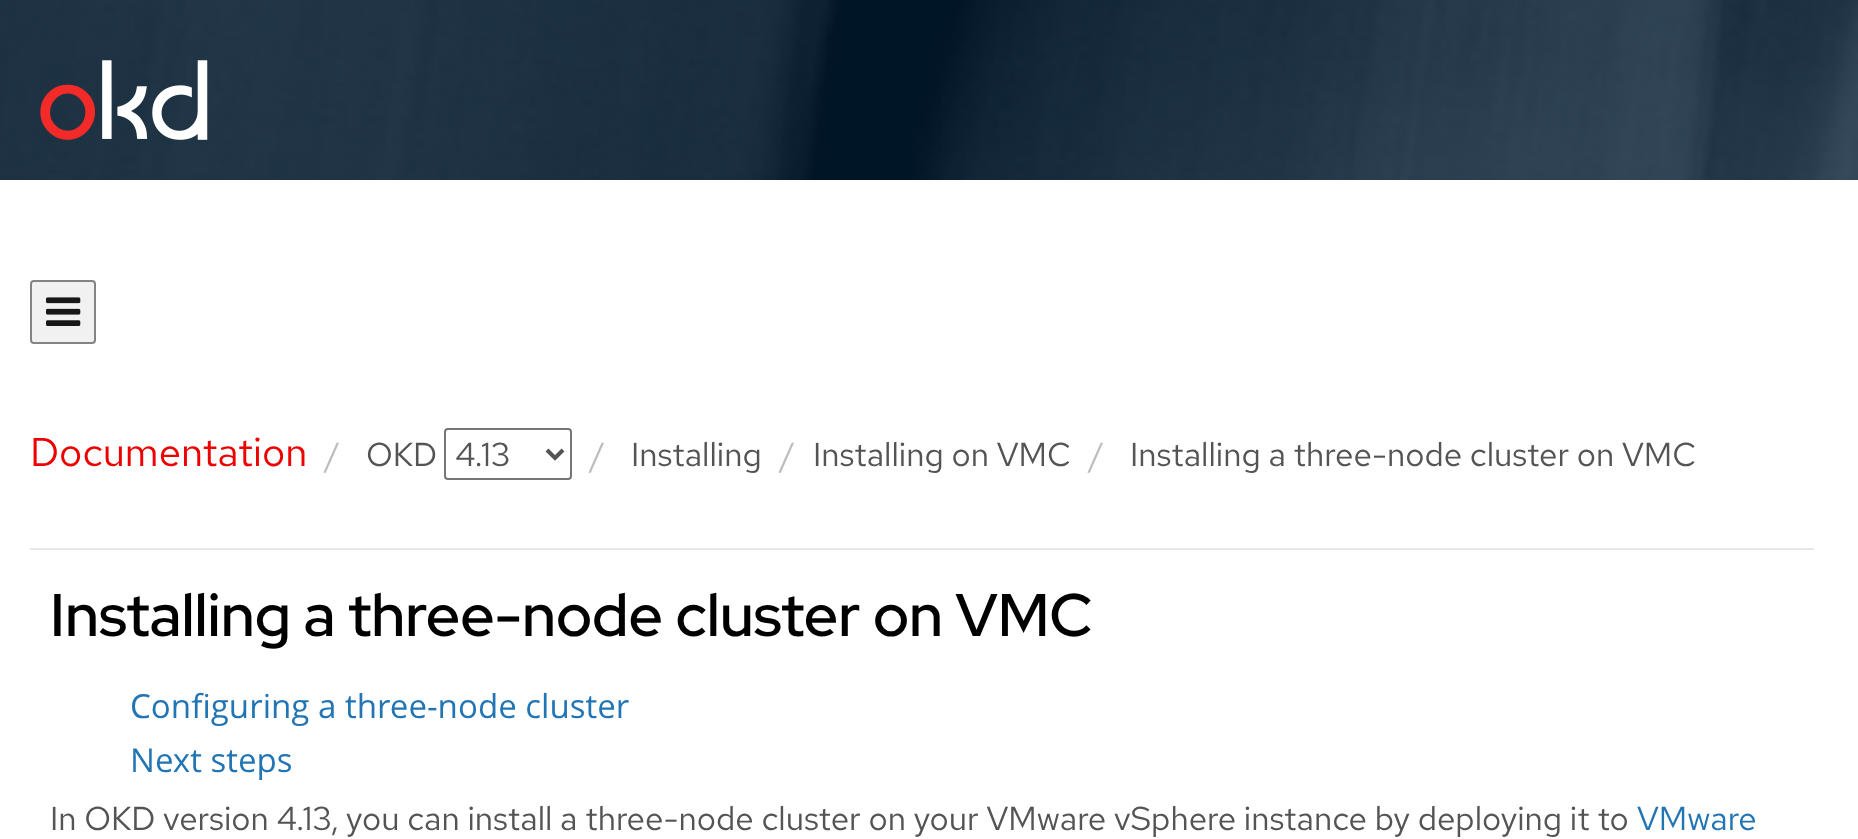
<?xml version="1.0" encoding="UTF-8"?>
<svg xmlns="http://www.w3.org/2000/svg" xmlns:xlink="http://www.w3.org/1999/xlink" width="1858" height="839">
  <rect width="100%" height="100%" fill="#ffffff" />
  <image x="0" y="0" width="1858" height="180" xlink:href="image1.png" />
  <image x="40" y="60" width="168" height="80" xlink:href="image2.png" />
  <rect x="31" y="281" width="64" height="62" rx="3" fill="#f1f1f1" stroke="#848484" stroke-width="2" />
  <image x="46" y="297" width="35" height="29" xlink:href="image3.png" />
  <rect x="30" y="548" width="1784" height="2" fill="#e7e7e7" />
  <rect x="445" y="429" width="126" height="50" rx="3" fill="none" stroke="#767676" stroke-width="2" />
  <path d="M 547 450 l 8 8 l 8 -8" fill="none" stroke="#545454" stroke-width="4" />
  <text x="30" y="466" style="font-family: Red Hat Text; font-size: 40px; fill: #ee0000">Documentation</text>
  <text x="325" y="466" style="font-family: Red Hat Text; font-size: 33.1px; fill: #bdbdbd">/</text>
  <text x="366" y="466" style="font-family: Red Hat Text; font-size: 33.1px; fill: #545454">OKD</text>
  <text x="455" y="466" style="font-family: Red Hat Text; font-size: 33.1px; fill: #545454">4.13</text>
  <text x="590" y="466" style="font-family: Red Hat Text; font-size: 33.1px; fill: #bdbdbd">/</text>
  <text x="631" y="466" style="font-family: Red Hat Text; font-size: 33.1px; fill: #545454">Installing</text>
  <text x="780" y="466" style="font-family: Red Hat Text; font-size: 33.1px; fill: #bdbdbd">/</text>
  <text x="813" y="466" style="font-family: Red Hat Text; font-size: 33.1px; fill: #545454">Installing on VMC</text>
  <text x="1089" y="466" style="font-family: Red Hat Text; font-size: 33.1px; fill: #bdbdbd">/</text>
  <text x="1130" y="466" style="font-family: Red Hat Text; font-size: 33.1px; fill: #545454">Installing a three-node cluster on VMC</text>
  <text x="50" y="636" style="font-family: Red Hat Display; font-size: 60px; font-weight: 500; fill: #000000">Installing a three-node cluster on VMC</text>
  <text x="130" y="718" style="font-family: Open Sans; font-size: 33.1px; fill: #2275b4">Configuring a three-node cluster</text>
  <text x="130" y="772" style="font-family: Open Sans; font-size: 33.1px; fill: #2275b4">Next steps</text>
  <text x="50" y="830" style="font-family: Red Hat Text; font-size: 33.1px; fill: #545454">In OKD version 4.13, you can install a three-node cluster on your VMware vSphere instance by deploying it to</text>
  <text x="1637" y="830" style="font-family: Red Hat Text; font-size: 33.1px; fill: #2275b4">VMware</text>
</svg>
